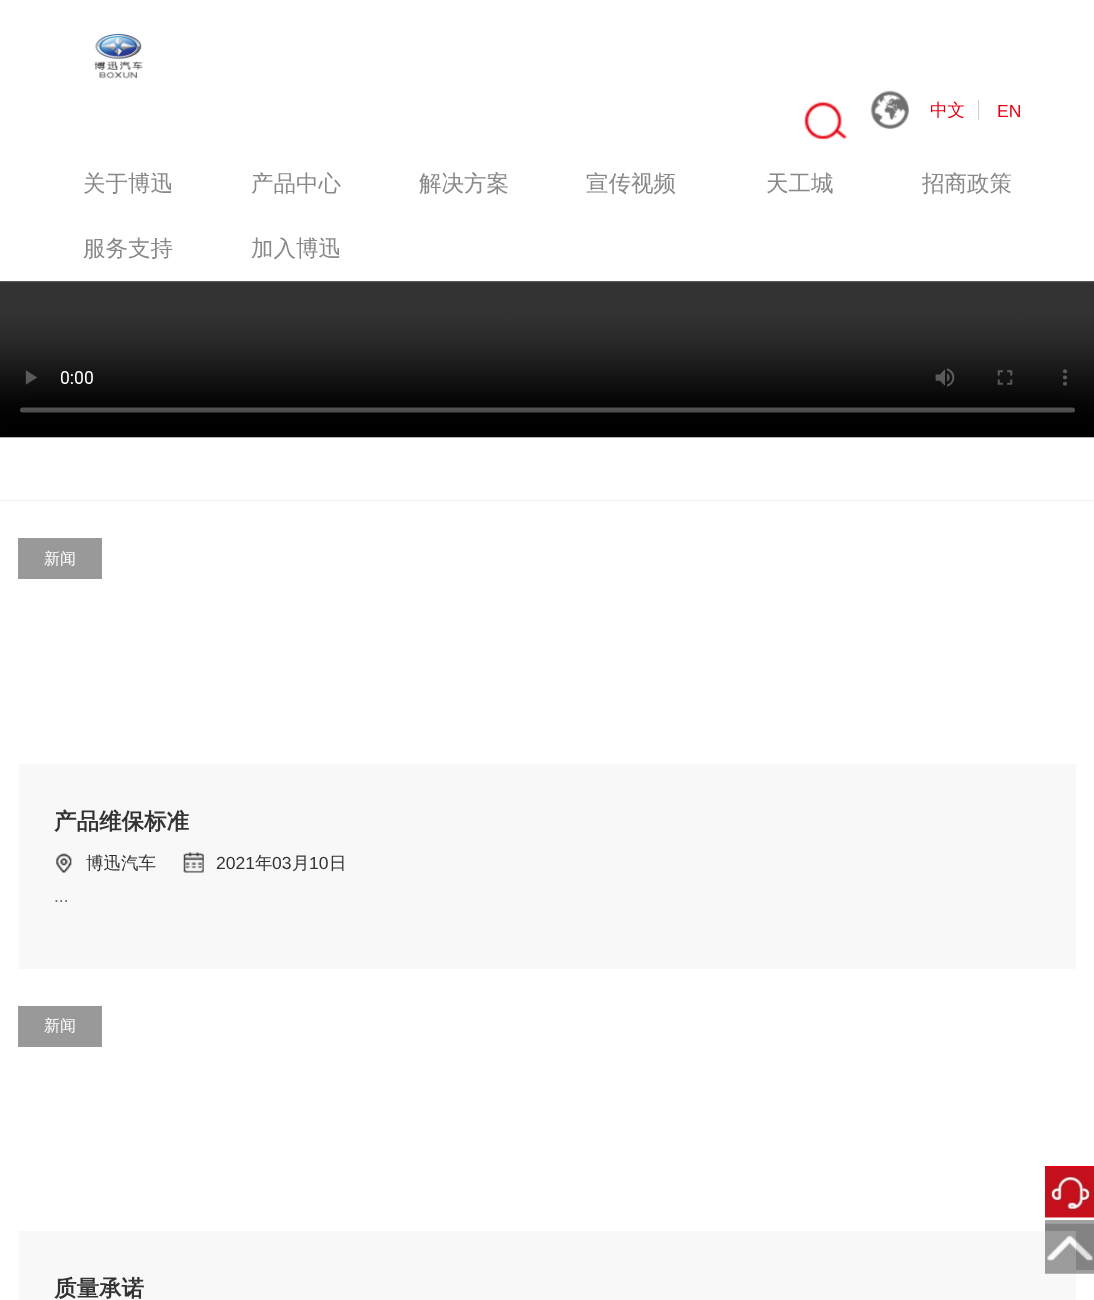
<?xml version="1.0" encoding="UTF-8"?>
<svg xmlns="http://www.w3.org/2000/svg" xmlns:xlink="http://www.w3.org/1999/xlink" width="1094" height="1300">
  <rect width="100%" height="100%" fill="#ffffff" />
  <rect x="1045" y="1220" width="49" height="50" fill="#a3a3a3" />
  <image x="0" y="281" width="1094" height="157" xlink:href="image4.png" />
  <rect width="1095" height="281" fill="#999999" filter="blur(1px)" />
  <rect width="1094" height="281" fill="#ffffff" />
  <image x="94" y="34" width="49" height="45" xlink:href="image1.png" />
  <image x="804" y="101" width="43" height="39" xlink:href="image2.png" />
  <image x="870" y="90" width="39" height="39" xlink:href="image3.png" />
  <rect x="978" y="100" width="1" height="20" fill="#cccccc" />
  <rect y="500" width="1094" height="1" fill="#eeeeee" />
  <rect x="18" y="538" width="84" height="41" fill="#999999" />
  <rect x="19" y="764" width="1057" height="205" fill="#f8f8f8" />
  <image x="56" y="853" width="16" height="20" xlink:href="image5.png" />
  <image x="183" y="852" width="21" height="21" xlink:href="image6.png" />
  <rect x="18" y="1006" width="84" height="41" fill="#999999" />
  <rect x="19" y="1231" width="1057" height="69" fill="#f8f8f8" />
  <rect x="1045" y="1166" width="49" height="2" fill="#e60012" />
  <image x="1045" y="1167" width="49" height="51" xlink:href="image7.png" />
  <image x="1045" y="1223" width="49" height="51" xlink:href="image8.png" />
  <text x="930" y="116" style="font-family: WenQuanYi Zen Hei; font-size: 17.5px; font-weight: 500; fill: #e60012">中文</text>
  <text x="997" y="117" style="font-family: Liberation Sans; font-size: 17.5px; fill: #e60012">EN</text>
  <text x="83" y="191" style="font-family: WenQuanYi Zen Hei; font-size: 22.5px; font-weight: 500; fill: #888888">关于博迅</text>
  <text x="251" y="191" style="font-family: WenQuanYi Zen Hei; font-size: 22.5px; font-weight: 500; fill: #888888">产品中心</text>
  <text x="419" y="191" style="font-family: WenQuanYi Zen Hei; font-size: 22.5px; font-weight: 500; fill: #888888">解决方案</text>
  <text x="586" y="191" style="font-family: WenQuanYi Zen Hei; font-size: 22.5px; font-weight: 500; fill: #888888">宣传视频</text>
  <text x="766" y="191" style="font-family: WenQuanYi Zen Hei; font-size: 22.5px; font-weight: 500; fill: #888888">天工城</text>
  <text x="922" y="191" style="font-family: WenQuanYi Zen Hei; font-size: 22.5px; font-weight: 500; fill: #888888">招商政策</text>
  <text x="83" y="256" style="font-family: WenQuanYi Zen Hei; font-size: 22.5px; font-weight: 500; fill: #888888">服务支持</text>
  <text x="251" y="256" style="font-family: WenQuanYi Zen Hei; font-size: 22.5px; font-weight: 500; fill: #888888">加入博迅</text>
  <text x="44" y="564" style="font-family: WenQuanYi Zen Hei; font-size: 16px; font-weight: 500; fill: #ffffff">新闻</text>
  <text x="54" y="829" style="font-family: WenQuanYi Zen Hei; font-size: 22.5px; font-weight: bold; fill: #333333">产品维保标准</text>
  <text x="86" y="869" style="font-family: WenQuanYi Zen Hei; font-size: 17.5px; font-weight: 500; fill: #333333">博迅汽车</text>
  <text x="216" y="869" style="font-family: Liberation Sans; font-size: 17.5px; fill: #333333">2021</text>
  <text x="255" y="869" style="font-family: WenQuanYi Zen Hei; font-size: 17.5px; font-weight: 500; fill: #333333">年</text>
  <text x="272" y="869" style="font-family: Liberation Sans; font-size: 17.5px; fill: #333333">03</text>
  <text x="292" y="869" style="font-family: WenQuanYi Zen Hei; font-size: 17.5px; font-weight: 500; fill: #333333">月</text>
  <text x="309" y="869" style="font-family: Liberation Sans; font-size: 17.5px; fill: #333333">10</text>
  <text x="329" y="869" style="font-family: WenQuanYi Zen Hei; font-size: 17.5px; font-weight: 500; fill: #333333">日</text>
  <text x="54" y="902" style="font-family: Liberation Sans; font-size: 17.5px; fill: #666666">...</text>
  <text x="44" y="1031" style="font-family: WenQuanYi Zen Hei; font-size: 16px; font-weight: 500; fill: #ffffff">新闻</text>
  <text x="54" y="1296" style="font-family: WenQuanYi Zen Hei; font-size: 22.5px; font-weight: bold; fill: #333333">质量承诺</text>
</svg>
